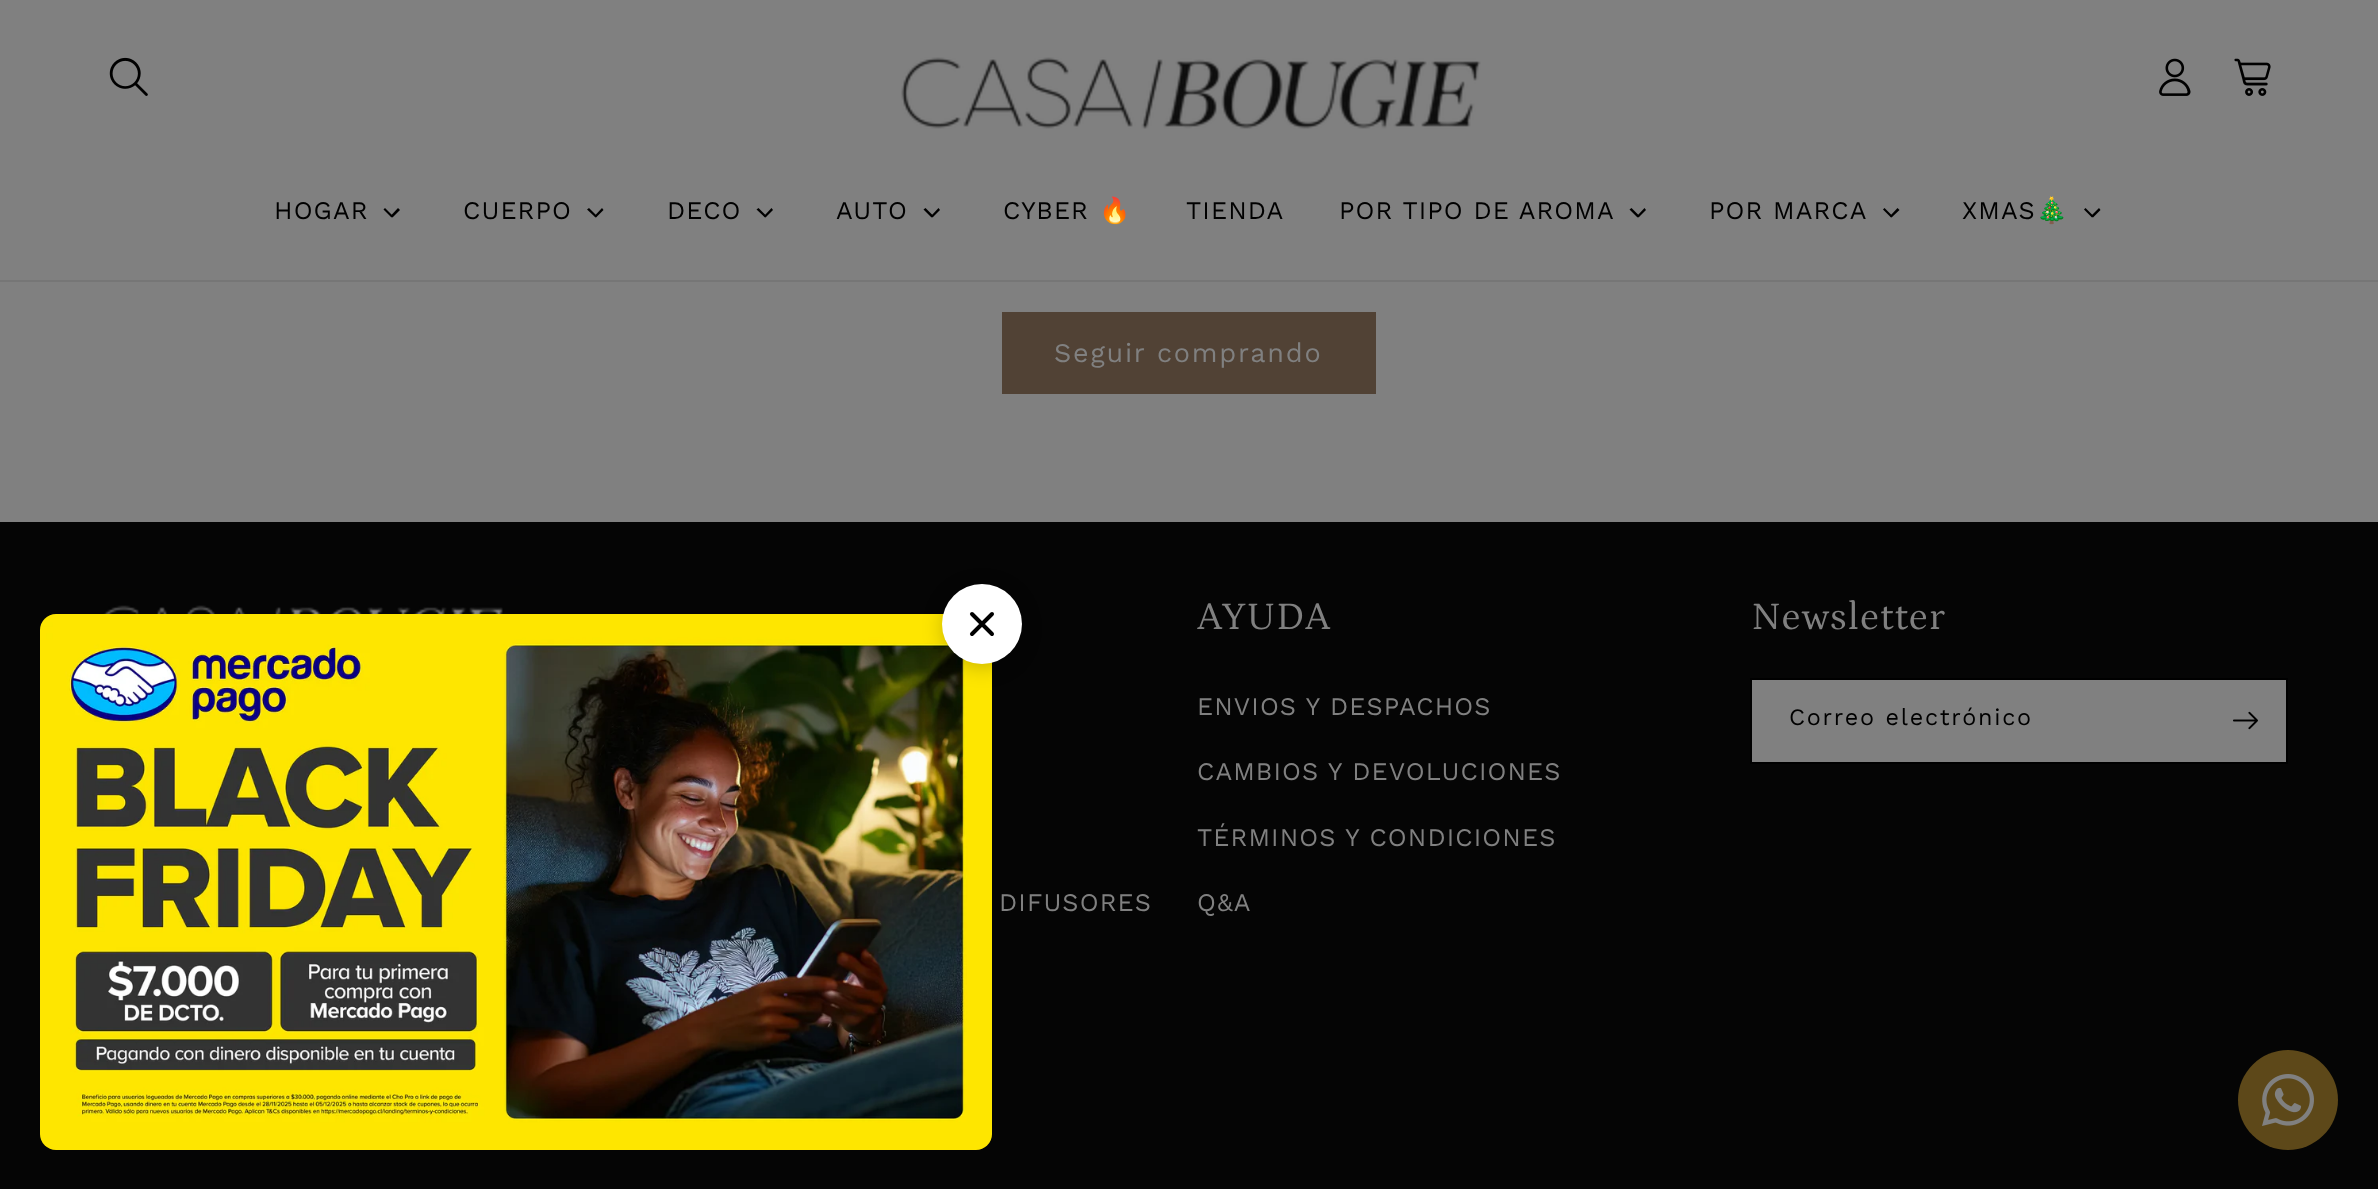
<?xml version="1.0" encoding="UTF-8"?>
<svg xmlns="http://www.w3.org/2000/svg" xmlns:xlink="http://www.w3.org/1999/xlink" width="2378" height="1189">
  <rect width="100%" height="100%" fill="#808080" />
  <rect y="280" width="2378" height="2" fill="#767676" />
  <image x="109" y="57" width="39" height="39" xlink:href="image1.png" />
  <image x="901" y="57" width="580" height="72" xlink:href="image2.png" />
  <image x="2159" y="58" width="32" height="38" xlink:href="image3.png" />
  <image x="2234" y="58" width="37" height="38" xlink:href="image4.png" />
  <path d="M 398 208 l 2 2 l -7.5 7.5 l -2 -1.5 z" fill="#000000" />
  <path d="M 385 208 l 8 8 l -1.5 1.5 l -8 -8 z" fill="#000000" />
  <path d="M 602 208 l 1.5 2 l -7.5 7.5 l -1.5 -1.5 z" fill="#000000" />
  <path d="M 589 208 l 8 8 l -1.5 1.5 l -8.5 -8 z" fill="#000000" />
  <path d="M 771.5 208 l 1.5 2 l -7.5 7.5 l -1.5 -1.5 z" fill="#000000" />
  <path d="M 758.5 208 l 8 8 l -1.5 1.5 l -8.5 -8 z" fill="#000000" />
  <path d="M 938.5 208 l 1.5 2 l -7.5 7.5 l -1.5 -1.5 z" fill="#000000" />
  <path d="M 925.5 208 l 8 8 l -2 1.5 l -8 -8 z" fill="#000000" />
  <path d="M 1644.5 208 l 1.5 2 l -7.5 7.5 l -1.5 -1.5 z" fill="#000000" />
  <path d="M 1631.5 208 l 8 8 l -2 1.5 l -8 -8 z" fill="#000000" />
  <path d="M 1897.5 208 l 2 2 l -8 7.5 l -1.5 -1.5 z" fill="#000000" />
  <path d="M 1884.5 208 l 8 8 l -1.5 1.5 l -8 -8 z" fill="#000000" />
  <path d="M 2099 208 l 1.5 2 l -7.5 7.5 l -2 -1.5 z" fill="#000000" />
  <path d="M 2085.5 208 l 8 8 l -1.5 1.5 l -8 -8 z" fill="#000000" />
  <rect x="1002" y="312" width="374" height="82" fill="#514235" />
  <rect y="522" width="2378" height="667" fill="#050505" />
  <image x="40" y="614" width="952" height="536" xlink:href="image5.png" />
  <rect x="942" y="588" width="80" height="80" rx="40" fill="#000000" fill-opacity="0.2" filter="blur(10px)" />
  <circle cx="982" cy="624" r="40" fill="#ffffff" />
  <path d="M 992 614 l -20 20 m 0 -20 l 20 20" fill="none" stroke="#000000" stroke-width="4" stroke-linecap="round" />
  <image x="103" y="605" width="400" height="9" xlink:href="image6.png" />
  <rect x="1752" y="680" width="534" height="82" fill="#808080" />
  <rect x="1751" y="679" width="536" height="84" fill="none" stroke="#000000" stroke-width="2" />
  <image x="2233" y="711" width="25" height="19" xlink:href="image7.png" />
  <circle cx="2288" cy="1100" r="50" fill="#5d4819" />
  <image x="2262" y="1074" width="52" height="52" xlink:href="image8.png" />
  <text x="274" y="219" style="font-family: Work Sans; font-size: 25.25px; letter-spacing: 1.1px; fill: #000000">HOGAR</text>
  <text x="463" y="219" style="font-family: Work Sans; font-size: 25.25px; letter-spacing: 1.1px; fill: #000000">CUERPO</text>
  <text x="667" y="219" style="font-family: Work Sans; font-size: 25.25px; letter-spacing: 1.1px; fill: #000000">DECO</text>
  <text x="836" y="219" style="font-family: Work Sans; font-size: 25.25px; letter-spacing: 1.1px; fill: #000000">AUTO</text>
  <text x="1003" y="219" style="font-family: Work Sans; font-size: 25.25px; letter-spacing: 1.1px; fill: #000000">CYBER</text>
  <text x="1099" y="219" style="font-family: Noto Color Emoji; font-size: 25.25px; letter-spacing: 1.1px; fill: #000000">🔥</text>
  <text x="1186" y="219" style="font-family: Work Sans; font-size: 25.25px; letter-spacing: 1.1px; fill: #000000">TIENDA</text>
  <text x="1339" y="219" style="font-family: Work Sans; font-size: 25.25px; letter-spacing: 1.1px; fill: #000000">POR TIPO DE AROMA</text>
  <text x="1709" y="219" style="font-family: Work Sans; font-size: 25.25px; letter-spacing: 1.1px; fill: #000000">POR MARCA</text>
  <text x="1962" y="219" style="font-family: Work Sans; font-size: 25.25px; letter-spacing: 1.1px; fill: #000000">XMAS</text>
  <text x="2036" y="219" style="font-family: Noto Color Emoji; font-size: 25.25px; letter-spacing: 1.1px; fill: #000000">🎄</text>
  <text x="1054" y="362" style="font-family: Work Sans; font-size: 27px; letter-spacing: 1.75px; fill: #808080">Seguir comprando</text>
  <text x="1197" y="629" style="font-family: Petrona; font-size: 39.5px; letter-spacing: 1.25px; fill: #808080">AYUDA</text>
  <text x="1197" y="715" style="font-family: Work Sans; font-size: 25.25px; letter-spacing: 1.1px; fill: #808080">ENVIOS Y DESPACHOS</text>
  <text x="1197" y="780" style="font-family: Work Sans; font-size: 25.25px; letter-spacing: 1.1px; fill: #808080">CAMBIOS Y DEVOLUCIONES</text>
  <text x="1197" y="846" style="font-family: Work Sans; font-size: 25.25px; letter-spacing: 1.1px; fill: #808080">TÉRMINOS Y CONDICIONES</text>
  <text x="1197" y="911" style="font-family: Work Sans; font-size: 25.25px; letter-spacing: 1.1px; fill: #808080">Q&amp;A</text>
  <text x="1751" y="629" style="font-family: Petrona; font-size: 39.5px; letter-spacing: 1.25px; fill: #808080">Newsletter</text>
  <text x="1789" y="725" style="font-family: Work Sans; font-size: 23.4px; letter-spacing: 1.75px; fill: #000000">Correo electrónico</text>
  <text x="999" y="911" style="font-family: Work Sans; font-size: 25.25px; letter-spacing: 1.1px; fill: #808080">DIFUSORES</text>
</svg>
